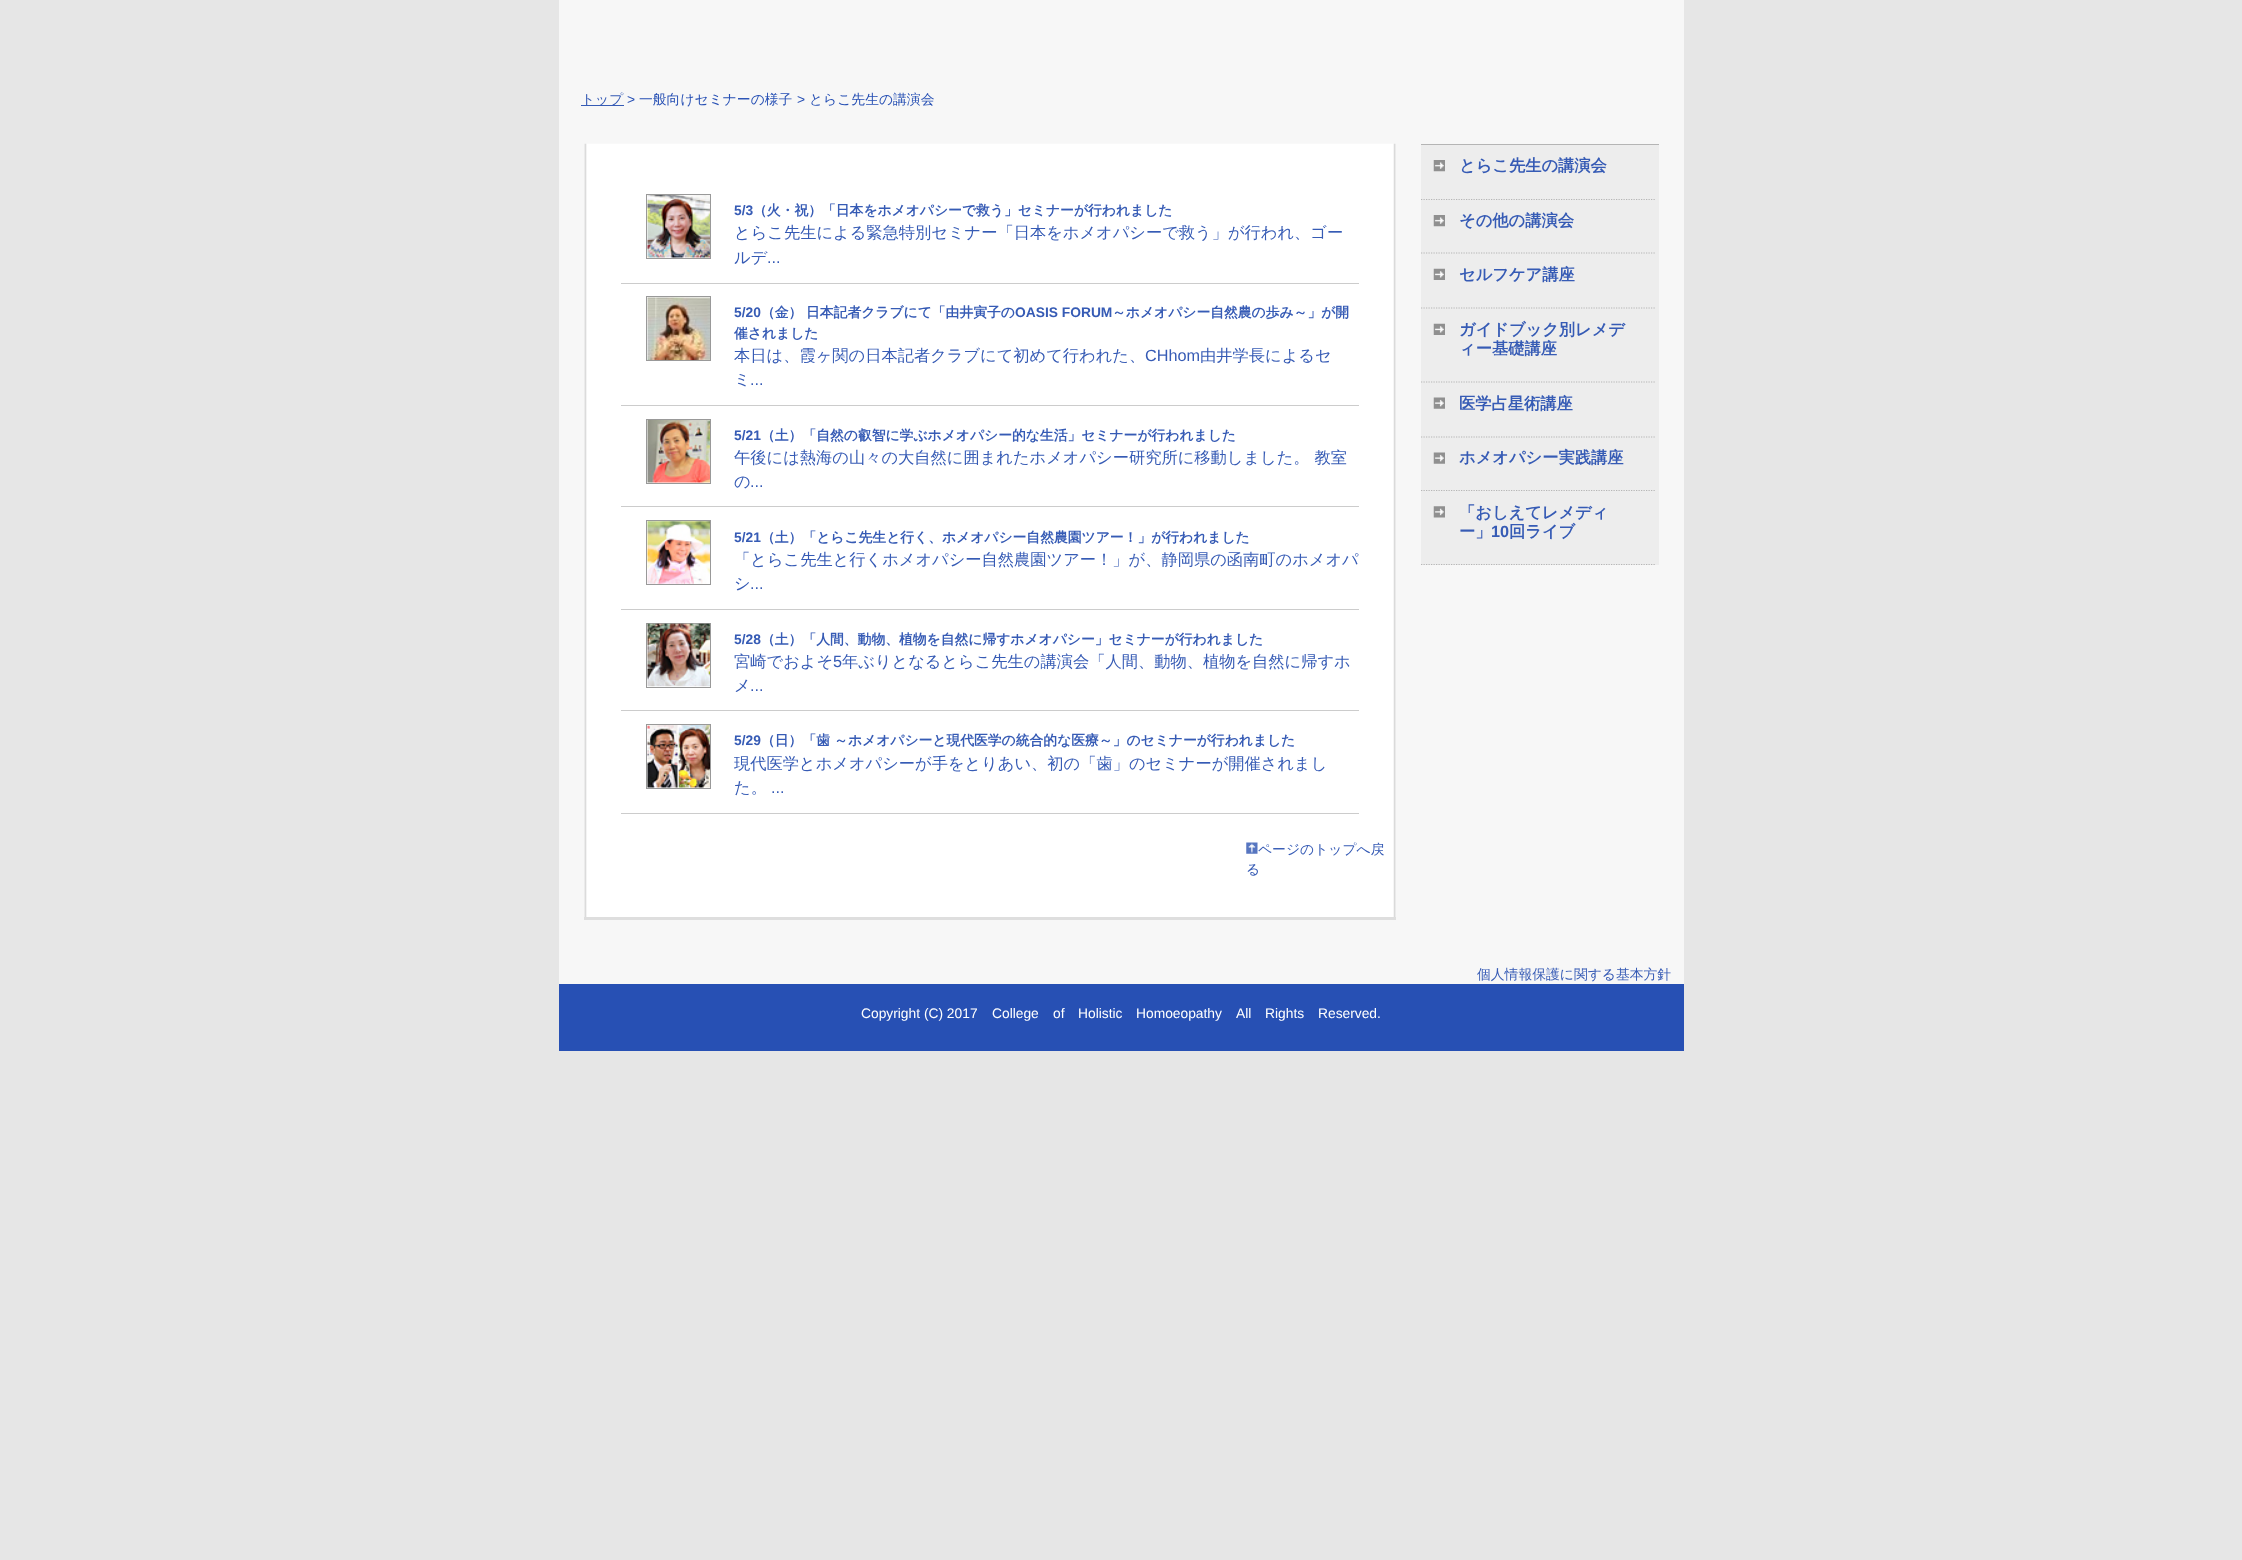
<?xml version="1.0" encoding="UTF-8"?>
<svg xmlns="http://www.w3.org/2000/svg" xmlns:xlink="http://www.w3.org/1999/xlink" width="2242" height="1560">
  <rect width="100%" height="100%" fill="#e6e6e6" />
  <rect x="559" width="1125" height="984" fill="#f7f7f7" />
  <rect x="581" y="105" width="43" height="1" fill="#365bb5" />
  <image x="584" y="143" width="812" height="774" xlink:href="image1.png" />
  <rect x="646.5" y="194.5" width="64" height="64" fill="none" stroke="#999999" />
  <image x="647" y="195" width="63" height="63" xlink:href="image2.png" />
  <rect x="621" y="283" width="738" height="1" fill="#cccccc" />
  <rect x="646.5" y="296.5" width="64" height="64" fill="none" stroke="#999999" />
  <image x="647" y="297" width="63" height="63" xlink:href="image3.png" />
  <rect x="621" y="405" width="738" height="1" fill="#cccccc" />
  <rect x="646.5" y="419.5" width="64" height="64" fill="none" stroke="#999999" />
  <image x="647" y="420" width="63" height="63" xlink:href="image4.png" />
  <rect x="621" y="506" width="738" height="1" fill="#cccccc" />
  <rect x="646.5" y="520.5" width="64" height="64" fill="none" stroke="#999999" />
  <image x="647" y="521" width="63" height="63" xlink:href="image5.png" />
  <rect x="621" y="609" width="738" height="1" fill="#cccccc" />
  <rect x="646.5" y="623.5" width="64" height="64" fill="none" stroke="#999999" />
  <image x="647" y="623" width="63" height="64" xlink:href="image6.png" />
  <rect x="621" y="710" width="738" height="1" fill="#cccccc" />
  <rect x="646.5" y="724.5" width="64" height="64" fill="none" stroke="#999999" />
  <image x="647" y="725" width="63" height="63" xlink:href="image7.png" />
  <rect x="621" y="813" width="738" height="1" fill="#cccccc" />
  <image x="1246" y="842" width="12" height="12" xlink:href="image8.png" />
  <rect x="584" y="917" width="812" height="3" fill="#dedede" />
  <rect x="1421" y="145" width="238" height="420" fill="#ededed" />
  <rect x="1421" y="144" width="238" height="1" fill="#b5b5b5" />
  <image x="1433" y="160" width="12" height="12" xlink:href="image9.png" />
  <path d="M 1421 199.5 h 235" fill="none" stroke="#b5b5b5" stroke-width="1.2" stroke-dasharray="1.25 1.25" />
  <image x="1433" y="215" width="12" height="12" xlink:href="image9.png" />
  <path d="M 1421 253 h 235" fill="none" stroke="#b5b5b5" stroke-width="1.2" stroke-dasharray="1.25 1.25" />
  <image x="1433" y="268" width="12" height="12" xlink:href="image10.png" />
  <path d="M 1421 308 h 235" fill="none" stroke="#b5b5b5" stroke-width="1.2" stroke-dasharray="1.25 1.25" />
  <image x="1433" y="323" width="12" height="12" xlink:href="image10.png" />
  <path d="M 1421 382 h 235" fill="none" stroke="#b5b5b5" stroke-width="1.2" stroke-dasharray="1.25 1.25" />
  <image x="1433" y="397" width="12" height="12" xlink:href="image11.png" />
  <path d="M 1421 437 h 235" fill="none" stroke="#b5b5b5" stroke-width="1.2" stroke-dasharray="1.25 1.25" />
  <image x="1433" y="452" width="12" height="12" xlink:href="image11.png" />
  <path d="M 1421 490.5 h 235" fill="none" stroke="#b5b5b5" stroke-width="1.2" stroke-dasharray="1.25 1.25" />
  <image x="1433" y="506" width="12" height="12" xlink:href="image12.png" />
  <path d="M 1421 564.5 h 235" fill="none" stroke="#b5b5b5" stroke-width="1.2" stroke-dasharray="1.25 1.25" />
  <rect x="559" y="984" width="1125" height="67" fill="#2750b4" />
  <text x="581" y="104" style="font-family: WenQuanYi Zen Hei; font-size: 13.8px; font-weight: 500; fill: #365bb5">トップ</text>
  <text x="627" y="104" style="font-family: Liberation Sans; font-size: 13.8px; fill: #2750b4">&gt;</text>
  <text x="639" y="104" style="font-family: WenQuanYi Zen Hei; font-size: 13.8px; font-weight: 500; fill: #2750b4">一般向けセミナーの様子</text>
  <text x="797" y="104" style="font-family: Liberation Sans; font-size: 13.8px; fill: #2750b4">&gt;</text>
  <text x="809" y="104" style="font-family: WenQuanYi Zen Hei; font-size: 13.8px; font-weight: 500; fill: #2750b4">とらこ先生の講演会</text>
  <text x="734" y="215" style="font-family: Liberation Sans; font-size: 13.8px; font-weight: bold; fill: #365bb5">5/3</text>
  <text x="753" y="215" style="font-family: WenQuanYi Zen Hei; font-size: 13.8px; font-weight: bold; fill: #365bb5">（火・祝）「日本をホメオパシーで救う」セミナーが行われました</text>
  <text x="734" y="238" style="font-family: WenQuanYi Zen Hei; font-size: 16.25px; font-weight: 500; fill: #365bb5">とらこ先生による緊急特別セミナー「日本をホメオパシーで救う」が行われ、ゴー</text>
  <text x="734" y="263" style="font-family: WenQuanYi Zen Hei; font-size: 16.25px; font-weight: 500; fill: #365bb5">ルデ</text>
  <text x="767" y="263" style="font-family: Liberation Sans; font-size: 16.25px; fill: #365bb5">...</text>
  <text x="734" y="317" style="font-family: Liberation Sans; font-size: 13.8px; font-weight: bold; fill: #365bb5">5/20</text>
  <text x="761" y="317" style="font-family: WenQuanYi Zen Hei; font-size: 13.8px; font-weight: bold; fill: #365bb5">（金）</text>
  <text x="806" y="317" style="font-family: WenQuanYi Zen Hei; font-size: 13.8px; font-weight: bold; fill: #365bb5">日本記者クラブにて「由井寅子の</text>
  <text x="1015" y="317" style="font-family: Liberation Sans; font-size: 13.8px; font-weight: bold; fill: #365bb5">OASIS FORUM</text>
  <text x="1112" y="317" style="font-family: WenQuanYi Zen Hei; font-size: 13.8px; font-weight: bold; fill: #365bb5">～ホメオパシー自然農の歩み～」が開</text>
  <text x="734" y="338" style="font-family: WenQuanYi Zen Hei; font-size: 13.8px; font-weight: bold; fill: #365bb5">催されました</text>
  <text x="734" y="361" style="font-family: WenQuanYi Zen Hei; font-size: 16.25px; font-weight: 500; fill: #365bb5">本日は、霞ヶ関の日本記者クラブにて初めて行われた、</text>
  <text x="1145" y="361" style="font-family: Liberation Sans; font-size: 16.25px; fill: #365bb5">CHhom</text>
  <text x="1200" y="361" style="font-family: WenQuanYi Zen Hei; font-size: 16.25px; font-weight: 500; fill: #365bb5">由井学長によるセ</text>
  <text x="734" y="385" style="font-family: WenQuanYi Zen Hei; font-size: 16.25px; font-weight: 500; fill: #365bb5">ミ</text>
  <text x="750" y="385" style="font-family: Liberation Sans; font-size: 16.25px; fill: #365bb5">...</text>
  <text x="734" y="440" style="font-family: Liberation Sans; font-size: 13.8px; font-weight: bold; fill: #365bb5">5/21</text>
  <text x="761" y="440" style="font-family: WenQuanYi Zen Hei; font-size: 13.8px; font-weight: bold; fill: #365bb5">（土）「自然の叡智に学ぶホメオパシー的な生活」セミナーが行われました</text>
  <text x="734" y="463" style="font-family: WenQuanYi Zen Hei; font-size: 16.25px; font-weight: 500; fill: #365bb5">午後には熱海の山々の大自然に囲まれたホメオパシー研究所に移動しました。 教室</text>
  <text x="734" y="487" style="font-family: WenQuanYi Zen Hei; font-size: 16.25px; font-weight: 500; fill: #365bb5">の</text>
  <text x="750" y="487" style="font-family: Liberation Sans; font-size: 16.25px; fill: #365bb5">...</text>
  <text x="734" y="542" style="font-family: Liberation Sans; font-size: 13.8px; font-weight: bold; fill: #365bb5">5/21</text>
  <text x="761" y="542" style="font-family: WenQuanYi Zen Hei; font-size: 13.8px; font-weight: bold; fill: #365bb5">（土）「とらこ先生と行く、ホメオパシー自然農園ツアー！」が行われました</text>
  <text x="734" y="565" style="font-family: WenQuanYi Zen Hei; font-size: 16.25px; font-weight: 500; fill: #365bb5">「とらこ先生と行くホメオパシー自然農園ツアー！」が、静岡県の函南町のホメオパ</text>
  <text x="734" y="589" style="font-family: WenQuanYi Zen Hei; font-size: 16.25px; font-weight: 500; fill: #365bb5">シ</text>
  <text x="750" y="589" style="font-family: Liberation Sans; font-size: 16.25px; fill: #365bb5">...</text>
  <text x="734" y="644" style="font-family: Liberation Sans; font-size: 13.8px; font-weight: bold; fill: #365bb5">5/28</text>
  <text x="761" y="644" style="font-family: WenQuanYi Zen Hei; font-size: 13.8px; font-weight: bold; fill: #365bb5">（土）「人間、動物、植物を自然に帰すホメオパシー」セミナーが行われました</text>
  <text x="734" y="667" style="font-family: WenQuanYi Zen Hei; font-size: 16.25px; font-weight: 500; fill: #365bb5">宮崎でおよそ</text>
  <text x="833" y="667" style="font-family: Liberation Sans; font-size: 16.25px; fill: #365bb5">5</text>
  <text x="842" y="667" style="font-family: WenQuanYi Zen Hei; font-size: 16.25px; font-weight: 500; fill: #365bb5">年ぶりとなるとらこ先生の講演会「人間、動物、植物を自然に帰すホ</text>
  <text x="734" y="691" style="font-family: WenQuanYi Zen Hei; font-size: 16.25px; font-weight: 500; fill: #365bb5">メ</text>
  <text x="750" y="691" style="font-family: Liberation Sans; font-size: 16.25px; fill: #365bb5">...</text>
  <text x="734" y="745" style="font-family: Liberation Sans; font-size: 13.8px; font-weight: bold; fill: #365bb5">5/29</text>
  <text x="761" y="745" style="font-family: WenQuanYi Zen Hei; font-size: 13.8px; font-weight: bold; fill: #365bb5">（日）「歯 ～ホメオパシーと現代医学の統合的な医療～」のセミナーが行われました</text>
  <text x="734" y="769" style="font-family: WenQuanYi Zen Hei; font-size: 16.25px; font-weight: 500; fill: #365bb5">現代医学とホメオパシーが手をとりあい、初の「歯」のセミナーが開催されまし</text>
  <text x="734" y="793" style="font-family: WenQuanYi Zen Hei; font-size: 16.25px; font-weight: 500; fill: #365bb5">た。</text>
  <text x="771" y="793" style="font-family: Liberation Sans; font-size: 16.25px; fill: #365bb5">...</text>
  <text x="1258" y="854" style="font-family: WenQuanYi Zen Hei; font-size: 13.8px; font-weight: 500; fill: #365bb5">ページのトップへ戻</text>
  <text x="1246" y="874" style="font-family: WenQuanYi Zen Hei; font-size: 13.8px; font-weight: 500; fill: #365bb5">る</text>
  <text x="1459" y="171" style="font-family: WenQuanYi Zen Hei; font-size: 16.25px; font-weight: bold; fill: #365bb5">とらこ先生の講演会</text>
  <text x="1459" y="226" style="font-family: WenQuanYi Zen Hei; font-size: 16.25px; font-weight: bold; fill: #365bb5">その他の講演会</text>
  <text x="1459" y="280" style="font-family: WenQuanYi Zen Hei; font-size: 16.25px; font-weight: bold; fill: #365bb5">セルフケア講座</text>
  <text x="1459" y="335" style="font-family: WenQuanYi Zen Hei; font-size: 16.25px; font-weight: bold; fill: #365bb5">ガイドブック別レメデ</text>
  <text x="1459" y="354" style="font-family: WenQuanYi Zen Hei; font-size: 16.25px; font-weight: bold; fill: #365bb5">ィー基礎講座</text>
  <text x="1459" y="409" style="font-family: WenQuanYi Zen Hei; font-size: 16.25px; font-weight: bold; fill: #365bb5">医学占星術講座</text>
  <text x="1459" y="463" style="font-family: WenQuanYi Zen Hei; font-size: 16.25px; font-weight: bold; fill: #365bb5">ホメオパシー実践講座</text>
  <text x="1459" y="518" style="font-family: WenQuanYi Zen Hei; font-size: 16.25px; font-weight: bold; fill: #365bb5">「おしえてレメディ</text>
  <text x="1459" y="537" style="font-family: WenQuanYi Zen Hei; font-size: 16.25px; font-weight: bold; fill: #365bb5">ー」</text>
  <text x="1491" y="537" style="font-family: Liberation Sans; font-size: 16.25px; font-weight: bold; fill: #365bb5">10</text>
  <text x="1509" y="537" style="font-family: WenQuanYi Zen Hei; font-size: 16.25px; font-weight: bold; fill: #365bb5">回ライブ</text>
  <text x="1477" y="979" style="font-family: WenQuanYi Zen Hei; font-size: 13.8px; font-weight: 500; fill: #365bb5">個人情報保護に関する基本方針</text>
  <text x="861" y="1018" style="font-family: Liberation Sans; font-size: 13.8px; fill: #ffffff">Copyright (C) 2017</text>
  <text x="992" y="1018" style="font-family: Liberation Sans; font-size: 13.8px; fill: #ffffff">College</text>
  <text x="1053" y="1018" style="font-family: Liberation Sans; font-size: 13.8px; fill: #ffffff">of</text>
  <text x="1078" y="1018" style="font-family: Liberation Sans; font-size: 13.8px; fill: #ffffff">Holistic</text>
  <text x="1136" y="1018" style="font-family: Liberation Sans; font-size: 13.8px; fill: #ffffff">Homoeopathy</text>
  <text x="1236" y="1018" style="font-family: Liberation Sans; font-size: 13.8px; fill: #ffffff">All</text>
  <text x="1265" y="1018" style="font-family: Liberation Sans; font-size: 13.8px; fill: #ffffff">Rights</text>
  <text x="1318" y="1018" style="font-family: Liberation Sans; font-size: 13.8px; fill: #ffffff">Reserved.</text>
</svg>
